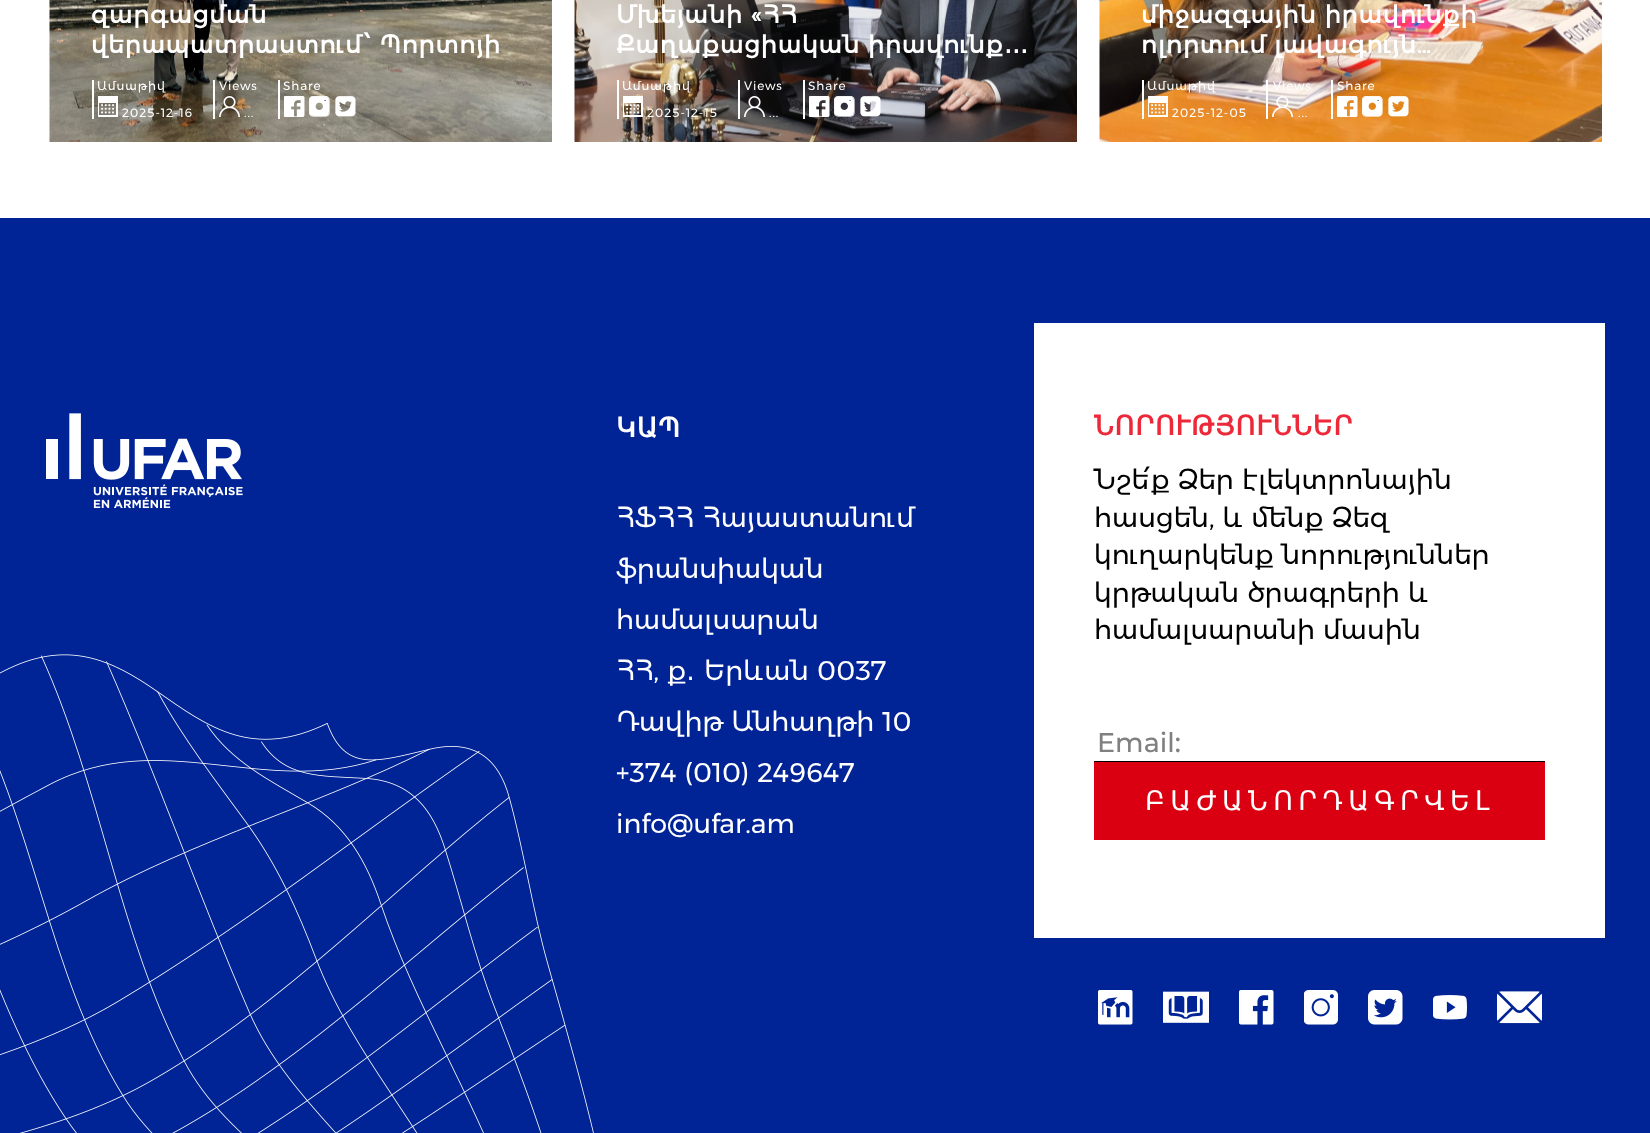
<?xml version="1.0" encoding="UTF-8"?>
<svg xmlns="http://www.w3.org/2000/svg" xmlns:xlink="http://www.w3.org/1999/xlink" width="1650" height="1133">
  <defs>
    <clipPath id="clip1"><rect x="617" width="418" height="65" /></clipPath>
  </defs>
  <rect width="100%" height="100%" fill="#ffffff" />
  <image x="49" y="0" width="503" height="142" xlink:href="image1.png" />
  <rect x="92" y="80" width="2" height="39" fill="#ffffff" />
  <image x="98" y="96" width="20" height="21" xlink:href="image2.png" />
  <rect x="213" y="80" width="2" height="39" fill="#ffffff" />
  <image x="219" y="96" width="21" height="21" xlink:href="image3.png" />
  <rect x="278" y="80" width="2" height="39" fill="#ffffff" />
  <image x="284" y="96" width="21" height="21" xlink:href="image4.png" />
  <image x="309" y="96" width="21" height="21" xlink:href="image5.png" />
  <image x="335" y="96" width="21" height="21" xlink:href="image6.png" />
  <image x="574" y="0" width="503" height="142" xlink:href="image7.png" />
  <rect x="617" y="80" width="2" height="39" fill="#ffffff" />
  <image x="623" y="96" width="20" height="21" xlink:href="image8.png" />
  <rect x="738" y="80" width="2" height="39" fill="#ffffff" />
  <image x="744" y="96" width="21" height="21" xlink:href="image9.png" />
  <rect x="803" y="80" width="2" height="39" fill="#ffffff" />
  <image x="809" y="96" width="21" height="21" xlink:href="image10.png" />
  <image x="834" y="96" width="21" height="21" xlink:href="image11.png" />
  <image x="860" y="96" width="21" height="21" xlink:href="image12.png" />
  <image x="1099" y="0" width="503" height="142" xlink:href="image13.png" />
  <rect x="1142" y="80" width="2" height="39" fill="#ffffff" />
  <image x="1148" y="96" width="20" height="21" xlink:href="image14.png" />
  <rect x="1266" y="80" width="2" height="39" fill="#ffffff" />
  <image x="1272" y="96" width="21" height="21" xlink:href="image15.png" />
  <rect x="1331" y="80" width="2" height="39" fill="#ffffff" />
  <image x="1337" y="96" width="21" height="21" xlink:href="image16.png" />
  <image x="1362" y="96" width="21" height="21" xlink:href="image17.png" />
  <image x="1388" y="96" width="21" height="21" xlink:href="image18.png" />
  <rect y="218" width="1650" height="915" fill="#002395" />
  <image x="0" y="654" width="594" height="479" xlink:href="image19.png" />
  <image x="46" y="413" width="197" height="96" xlink:href="image20.png" />
  <rect x="1034" y="323" width="571" height="615" fill="#ffffff" />
  <rect x="1094" y="761" width="451" height="1" fill="#000000" />
  <rect x="1094" y="762" width="451" height="78" fill="#db0011" />
  <image x="1098" y="990" width="35" height="35" xlink:href="image21.png" />
  <image x="1163" y="991" width="46" height="32" xlink:href="image22.png" />
  <image x="1239" y="990" width="35" height="35" xlink:href="image23.png" />
  <image x="1304" y="990" width="34" height="35" xlink:href="image24.png" />
  <image x="1368" y="990" width="35" height="35" xlink:href="image25.png" />
  <image x="1433" y="995" width="34" height="25" xlink:href="image26.png" />
  <image x="1497" y="991" width="45" height="33" xlink:href="image27.png" />
  <text x="91" y="23" style="font-family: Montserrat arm; font-size: 24px; font-weight: bold; letter-spacing: 0.9px; fill: #ffffff">զարգացման</text>
  <text x="91" y="53" style="font-family: Montserrat arm; font-size: 24px; font-weight: bold; letter-spacing: 0.9px; fill: #ffffff">վերապատրաստում՝ Պորտոյի</text>
  <text x="97" y="90" style="font-family: Montserrat arm; font-size: 12px; letter-spacing: 0.9px; fill: #ffffff">Ամսաթիվ</text>
  <text x="122" y="117" style="font-family: Montserrat arm; font-size: 12px; letter-spacing: 0.9px; fill: #ffffff">2025-12-16</text>
  <text x="219" y="90" style="font-family: Montserrat arm; font-size: 12px; letter-spacing: 0.9px; fill: #ffffff">Views</text>
  <text x="244" y="117" style="font-family: Montserrat arm; font-size: 12px; letter-spacing: 0.9px; fill: #ffffff">...</text>
  <text x="283" y="90" style="font-family: Montserrat arm; font-size: 12px; letter-spacing: 0.9px; fill: #ffffff">Share</text>
  <text x="616" y="23" style="font-family: Montserrat arm; font-size: 24px; font-weight: bold; letter-spacing: 0.9px; fill: #ffffff">Մխեյանի «ՀՀ</text>
  <g clip-path="url(#clip1)">
    <text x="616" y="53" style="font-family: Montserrat arm; font-size: 24px; font-weight: bold; letter-spacing: 0.9px; fill: #ffffff">Քաղաքացիական իրավունք</text>
  </g>
  <text x="1004" y="53" style="font-family: DejaVu Sans; font-size: 24px; font-weight: bold; letter-spacing: 0.9px; fill: #ffffff">…</text>
  <text x="622" y="90" style="font-family: Montserrat arm; font-size: 12px; letter-spacing: 0.9px; fill: #ffffff">Ամսաթիվ</text>
  <text x="647" y="117" style="font-family: Montserrat arm; font-size: 12px; letter-spacing: 0.9px; fill: #ffffff">2025-12-15</text>
  <text x="744" y="90" style="font-family: Montserrat arm; font-size: 12px; letter-spacing: 0.9px; fill: #ffffff">Views</text>
  <text x="769" y="117" style="font-family: Montserrat arm; font-size: 12px; letter-spacing: 0.9px; fill: #ffffff">...</text>
  <text x="808" y="90" style="font-family: Montserrat arm; font-size: 12px; letter-spacing: 0.9px; fill: #ffffff">Share</text>
  <text x="1141" y="23" style="font-family: Montserrat arm; font-size: 24px; font-weight: bold; letter-spacing: 0.9px; fill: #ffffff">միջազգային իրավունքի</text>
  <text x="1141" y="53" style="font-family: Montserrat arm; font-size: 24px; font-weight: bold; letter-spacing: 0.9px; fill: #ffffff">ոլորտում լավագույն…</text>
  <text x="1147" y="90" style="font-family: Montserrat arm; font-size: 12px; letter-spacing: 0.9px; fill: #ffffff">Ամսաթիվ</text>
  <text x="1172" y="117" style="font-family: Montserrat arm; font-size: 12px; letter-spacing: 0.9px; fill: #ffffff">2025-12-05</text>
  <text x="1273" y="90" style="font-family: Montserrat arm; font-size: 12px; letter-spacing: 0.9px; fill: #ffffff">Views</text>
  <text x="1298" y="117" style="font-family: Montserrat arm; font-size: 12px; letter-spacing: 0.9px; fill: #ffffff">...</text>
  <text x="1337" y="90" style="font-family: Montserrat arm; font-size: 12px; letter-spacing: 0.9px; fill: #ffffff">Share</text>
  <text x="616" y="437" style="font-family: DejaVu Sans; font-size: 27px; font-weight: bold; letter-spacing: 0.9px; fill: #ffffff">ԿԱՊ</text>
  <text x="616" y="527" style="font-family: Montserrat arm; font-size: 27px; fill: #ffffff">ՀՖՀՀ Հայաստանում</text>
  <text x="616" y="578" style="font-family: Montserrat arm; font-size: 27px; fill: #ffffff">ֆրանսիական</text>
  <text x="616" y="629" style="font-family: Montserrat arm; font-size: 27px; fill: #ffffff">համալսարան</text>
  <text x="616" y="680" style="font-family: Montserrat arm; font-size: 27px; fill: #ffffff">ՀՀ, ք</text>
  <text x="686" y="680" style="font-family: DejaVu Sans; font-size: 27px; fill: #ffffff">․</text>
  <text x="704" y="680" style="font-family: Montserrat arm; font-size: 27px; fill: #ffffff">Երևան 0037</text>
  <text x="616" y="731" style="font-family: Montserrat arm; font-size: 27px; fill: #ffffff">Դավիթ Անհաղթի 10</text>
  <text x="616" y="782" style="font-family: Montserrat arm; font-size: 27px; fill: #ffffff">+374 (010) 249647</text>
  <text x="616" y="833" style="font-family: Montserrat arm; font-size: 27px; fill: #ffffff">info@ufar.am</text>
  <text x="1094" y="435" style="font-family: DejaVu Sans; font-size: 27px; font-weight: bold; letter-spacing: 0.9px; fill: #ed2939">ՆՈՐՈՒԹՅՈՒՆՆԵՐ</text>
  <text x="1094" y="489" style="font-family: Montserrat arm; font-size: 27px; fill: #000000">Նշե՛ք Ձեր էլեկտրոնային</text>
  <text x="1094" y="527" style="font-family: Montserrat arm; font-size: 27px; fill: #000000">հասցեն, և մենք Ձեզ</text>
  <text x="1094" y="564" style="font-family: Montserrat arm; font-size: 27px; fill: #000000">կուղարկենք նորություններ</text>
  <text x="1094" y="602" style="font-family: Montserrat arm; font-size: 27px; fill: #000000">կրթական ծրագրերի և</text>
  <text x="1094" y="639" style="font-family: Montserrat arm; font-size: 27px; fill: #000000">համալսարանի մասին</text>
  <text x="1097" y="752" style="font-family: Montserrat; font-size: 27px; font-weight: 500; fill: #808080">Email:</text>
  <text x="1145" y="810" style="font-family: DejaVu Sans; font-size: 27px; letter-spacing: 5.4px; fill: #ffffff">ԲԱԺԱՆՈՐԴԱԳՐՎԵԼ</text>
</svg>
